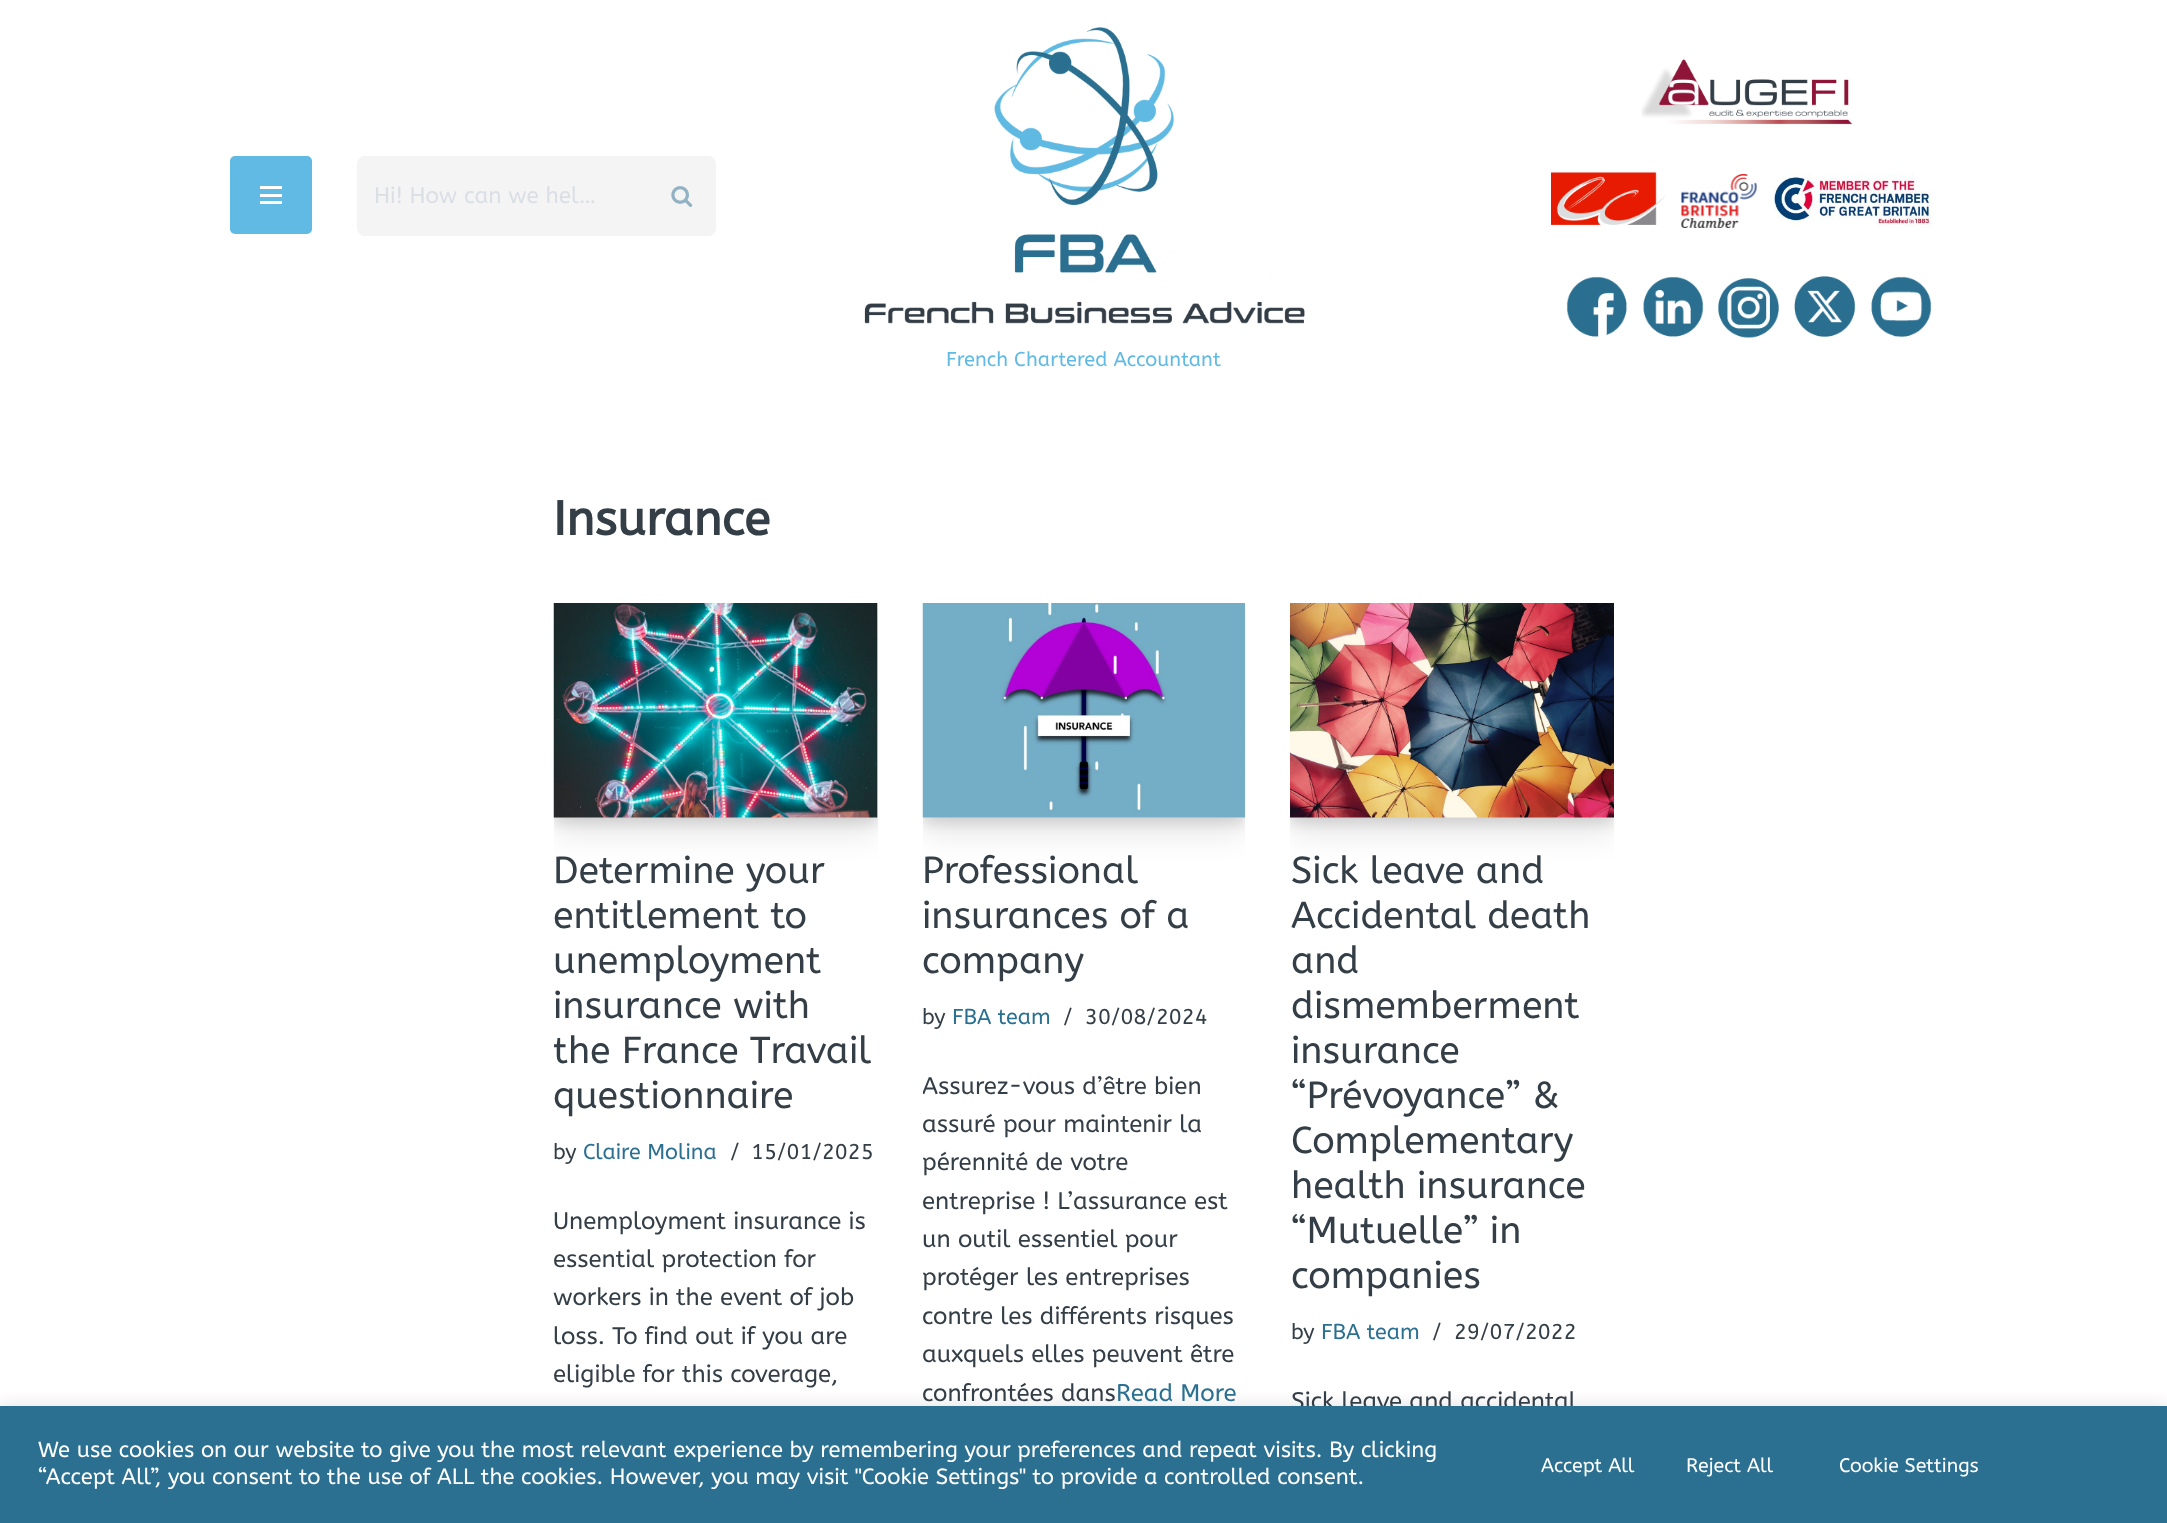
<?xml version="1.0" encoding="UTF-8"?>
<svg xmlns="http://www.w3.org/2000/svg" xmlns:xlink="http://www.w3.org/1999/xlink" width="2167" height="1523">
  <defs>
    <clipPath id="clip1"><rect x="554" y="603" width="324" height="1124" /></clipPath>
    <clipPath id="clip2"><rect x="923" y="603" width="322" height="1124" /></clipPath>
    <clipPath id="clip3"><rect x="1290" y="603" width="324" height="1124" /></clipPath>
    <clipPath id="clip4"><rect x="554" y="603" width="324" height="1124" /></clipPath>
    <clipPath id="clip5"><rect x="923" y="603" width="322" height="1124" /></clipPath>
  </defs>
  <rect width="100%" height="100%" fill="#ffffff" />
  <rect x="230" y="156" width="82" height="78" rx="5" fill="#60bae3" />
  <rect x="260" y="186" width="22" height="3" fill="#ffffff" />
  <rect x="260" y="194" width="22" height="3" fill="#ffffff" />
  <rect x="260" y="201" width="22" height="3" fill="#ffffff" />
  <path d="M 365 156 h 283 v 80 h -283 c -4.5 0 -8 -3.5 -8 -8 v -64 c 0 -4.5 3.5 -8 8 -8 z" fill="#f4f4f4" />
  <path d="M 648 156 h 60 c 4.5 0 8 3.5 8 8 v 64 c 0 4.5 -3.5 8 -8 8 h -60 z" fill="#f4f4f4" />
  <image x="671" y="186" width="22" height="21" xlink:href="image1.png" />
  <image x="1641" y="59" width="211" height="66" xlink:href="image2.png" />
  <image x="1551" y="172" width="115" height="53" xlink:href="image3.png" />
  <image x="1681" y="174" width="76" height="54" xlink:href="image4.png" />
  <image x="1773" y="172" width="160" height="56" xlink:href="image5.png" />
  <image x="1566" y="276" width="61" height="61" xlink:href="image6.png" />
  <image x="1643" y="276" width="61" height="61" xlink:href="image7.png" />
  <image x="1718" y="278" width="61" height="60" xlink:href="image8.png" />
  <image x="1794" y="276" width="62" height="61" xlink:href="image9.png" />
  <image x="1871" y="276" width="61" height="61" xlink:href="image10.png" />
  <image x="864" y="27" width="441" height="297" xlink:href="image11.png" />
  <g clip-path="url(#clip1)">
    <rect x="554" y="609" width="324" height="215" fill="#000000" fill-opacity="0.1" filter="blur(6px)" />
    <rect x="554" y="618" width="324" height="215" fill="#000000" fill-opacity="0.1" filter="blur(15px)" />
  </g>
  <image x="553" y="603" width="325" height="215" xlink:href="image12.png" />
  <g clip-path="url(#clip2)">
    <rect x="923" y="609" width="322" height="215" fill="#000000" fill-opacity="0.1" filter="blur(6px)" />
    <rect x="923" y="618" width="322" height="215" fill="#000000" fill-opacity="0.1" filter="blur(15px)" />
  </g>
  <image x="922" y="603" width="323" height="215" xlink:href="image13.png" />
  <g clip-path="url(#clip3)">
    <rect x="1290" y="609" width="324" height="215" fill="#000000" fill-opacity="0.1" filter="blur(6px)" />
    <rect x="1290" y="618" width="324" height="215" fill="#000000" fill-opacity="0.1" filter="blur(15px)" />
  </g>
  <image x="1290" y="603" width="324" height="215" xlink:href="image14.png" />
  <rect y="1404" width="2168" height="119" fill="#acabab" fill-opacity="0.3" filter="blur(7.5px)" />
  <text x="374" y="203" style="font-family: ABeeZee; font-size: 22.5px; fill: #dadfe6">Hi! How can we hel…</text>
  <text x="946" y="366" style="font-family: ABeeZee; font-size: 20px; fill: #60bae3">French Chartered Accountant</text>
  <text x="553" y="535" style="font-family: ABeeZee; font-size: 48px; font-weight: bold; fill: #343e47">Insurance</text>
  <text x="553" y="883" style="font-family: ABeeZee; font-size: 37.5px; fill: #343e47">Determine your</text>
  <text x="553" y="928" style="font-family: ABeeZee; font-size: 37.5px; fill: #343e47">entitlement to</text>
  <text x="553" y="973" style="font-family: ABeeZee; font-size: 37.5px; fill: #343e47">unemployment</text>
  <text x="553" y="1018" style="font-family: ABeeZee; font-size: 37.5px; fill: #343e47">insurance with</text>
  <g clip-path="url(#clip4)">
    <text x="553" y="1063" style="font-family: ABeeZee; font-size: 37.5px; fill: #343e47">the France Travail</text>
  </g>
  <text x="553" y="1108" style="font-family: ABeeZee; font-size: 37.5px; fill: #343e47">questionnaire</text>
  <text x="553" y="1159" style="font-family: ABeeZee; font-size: 21.5px; fill: #343e47">by</text>
  <text x="583" y="1159" style="font-family: ABeeZee; font-size: 21.5px; fill: #2b7091">Claire Molina</text>
  <text x="730" y="1159" style="font-family: ABeeZee; font-size: 21.5px; fill: #343e47">/</text>
  <text x="751" y="1159" style="font-family: ABeeZee; font-size: 21.5px; fill: #343e47">15/01/2025</text>
  <text x="553" y="1229" style="font-family: ABeeZee; font-size: 24px; fill: #343e47">Unemployment insurance is</text>
  <text x="553" y="1267" style="font-family: ABeeZee; font-size: 24px; fill: #343e47">essential protection for</text>
  <text x="553" y="1305" style="font-family: ABeeZee; font-size: 24px; fill: #343e47">workers in the event of job</text>
  <text x="553" y="1344" style="font-family: ABeeZee; font-size: 24px; fill: #343e47">loss. To find out if you are</text>
  <text x="553" y="1382" style="font-family: ABeeZee; font-size: 24px; fill: #343e47">eligible for this coverage,</text>
  <text x="922" y="883" style="font-family: ABeeZee; font-size: 37.5px; fill: #343e47">Professional</text>
  <text x="922" y="928" style="font-family: ABeeZee; font-size: 37.5px; fill: #343e47">insurances of a</text>
  <text x="922" y="973" style="font-family: ABeeZee; font-size: 37.5px; fill: #343e47">company</text>
  <text x="922" y="1024" style="font-family: ABeeZee; font-size: 21.5px; fill: #343e47">by</text>
  <text x="952" y="1024" style="font-family: ABeeZee; font-size: 21.5px; fill: #2b7091">FBA team</text>
  <text x="1063" y="1024" style="font-family: ABeeZee; font-size: 21.5px; fill: #343e47">/</text>
  <text x="1085" y="1024" style="font-family: ABeeZee; font-size: 21.5px; fill: #343e47">30/08/2024</text>
  <g clip-path="url(#clip5)">
    <text x="922" y="1094" style="font-family: ABeeZee; font-size: 24px; fill: #343e47">Assurez-vous d’être bien</text>
  </g>
  <text x="922" y="1132" style="font-family: ABeeZee; font-size: 24px; fill: #343e47">assuré pour maintenir la</text>
  <text x="922" y="1170" style="font-family: ABeeZee; font-size: 24px; fill: #343e47">pérennité de votre</text>
  <text x="922" y="1209" style="font-family: ABeeZee; font-size: 24px; fill: #343e47">entreprise ! L’assurance est</text>
  <text x="922" y="1247" style="font-family: ABeeZee; font-size: 24px; fill: #343e47">un outil essentiel pour</text>
  <text x="922" y="1285" style="font-family: ABeeZee; font-size: 24px; fill: #343e47">protéger les entreprises</text>
  <text x="922" y="1324" style="font-family: ABeeZee; font-size: 24px; fill: #343e47">contre les différents risques</text>
  <text x="922" y="1362" style="font-family: ABeeZee; font-size: 24px; fill: #343e47">auxquels elles peuvent être</text>
  <text x="922" y="1401" style="font-family: ABeeZee; font-size: 24px; fill: #343e47">confrontées dans</text>
  <text x="1116" y="1401" style="font-family: ABeeZee; font-size: 24px; fill: #2b7091">Read More</text>
  <text x="1291" y="883" style="font-family: ABeeZee; font-size: 37.5px; fill: #343e47">Sick leave and</text>
  <text x="1291" y="928" style="font-family: ABeeZee; font-size: 37.5px; fill: #343e47">Accidental death</text>
  <text x="1291" y="973" style="font-family: ABeeZee; font-size: 37.5px; fill: #343e47">and</text>
  <text x="1291" y="1018" style="font-family: ABeeZee; font-size: 37.5px; fill: #343e47">dismemberment</text>
  <text x="1291" y="1063" style="font-family: ABeeZee; font-size: 37.5px; fill: #343e47">insurance</text>
  <text x="1291" y="1108" style="font-family: ABeeZee; font-size: 37.5px; fill: #343e47">“Prévoyance” &amp;</text>
  <text x="1291" y="1153" style="font-family: ABeeZee; font-size: 37.5px; fill: #343e47">Complementary</text>
  <text x="1291" y="1198" style="font-family: ABeeZee; font-size: 37.5px; fill: #343e47">health insurance</text>
  <text x="1291" y="1243" style="font-family: ABeeZee; font-size: 37.5px; fill: #343e47">“Mutuelle” in</text>
  <text x="1291" y="1288" style="font-family: ABeeZee; font-size: 37.5px; fill: #343e47">companies</text>
  <text x="1291" y="1339" style="font-family: ABeeZee; font-size: 21.5px; fill: #343e47">by</text>
  <text x="1321" y="1339" style="font-family: ABeeZee; font-size: 21.5px; fill: #2b7091">FBA team</text>
  <text x="1432" y="1339" style="font-family: ABeeZee; font-size: 21.5px; fill: #343e47">/</text>
  <text x="1454" y="1339" style="font-family: ABeeZee; font-size: 21.5px; fill: #343e47">29/07/2022</text>
  <text x="1291" y="1409" style="font-family: ABeeZee; font-size: 24px; fill: #343e47">Sick leave and accidental</text>
  <rect y="1406" width="2167" height="117" fill="#2b7091" />
  <text x="38" y="1457" style="font-family: ABeeZee; font-size: 22px; fill: #ffffff">We use cookies on our website to give you the most relevant experience by remembering your preferences and repeat visits. By clicking</text>
  <text x="38" y="1484" style="font-family: ABeeZee; font-size: 22px; fill: #ffffff">“Accept All”, you consent to the use of ALL the cookies. However, you may visit "Cookie Settings" to provide a controlled consent.</text>
  <text x="1541" y="1472" style="font-family: ABeeZee; font-size: 19.5px; fill: #ffffff">Accept All</text>
  <text x="1686" y="1472" style="font-family: ABeeZee; font-size: 19.5px; fill: #ffffff">Reject All</text>
  <text x="1839" y="1472" style="font-family: ABeeZee; font-size: 19.5px; fill: #ffffff">Cookie Settings</text>
</svg>
